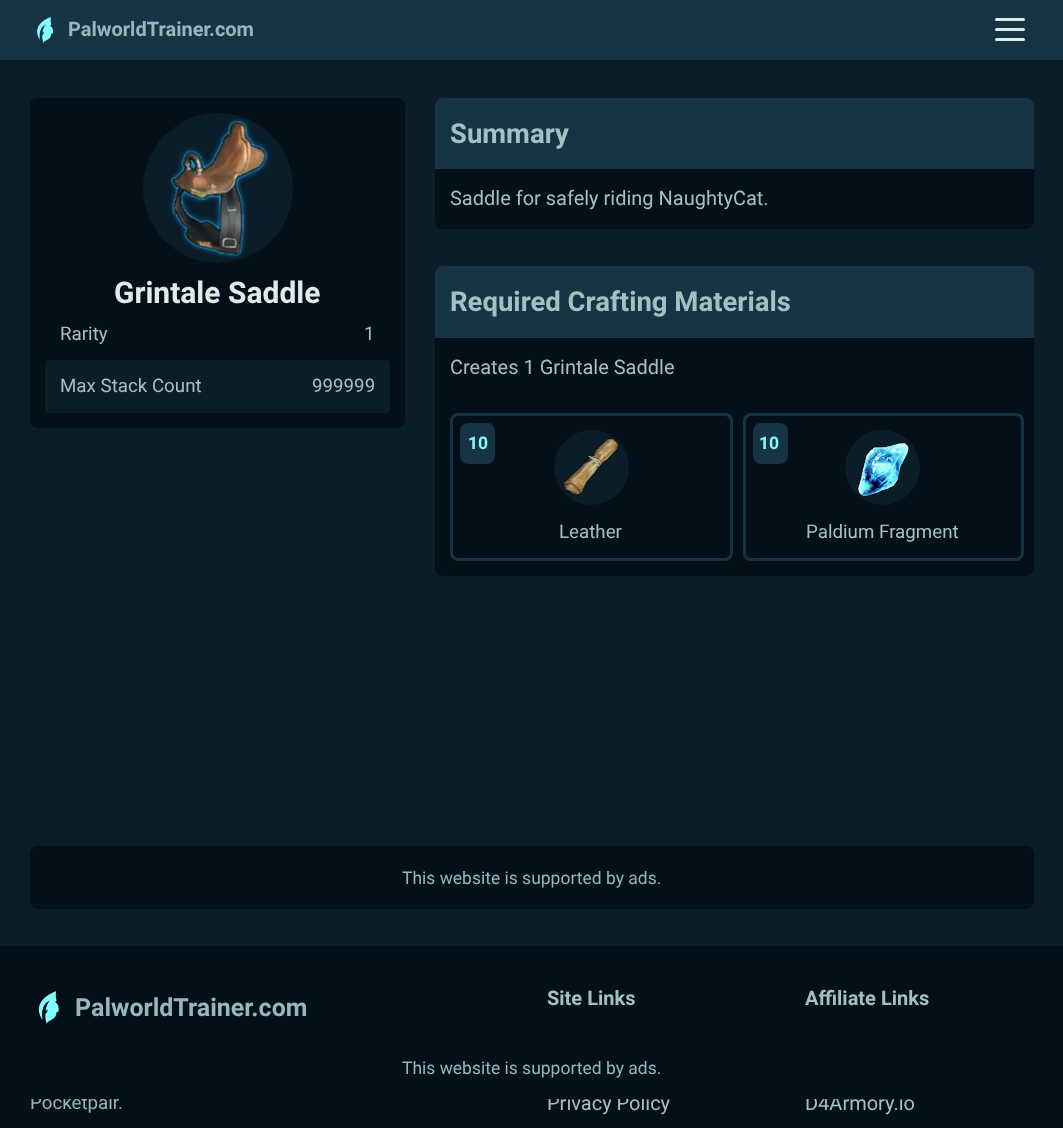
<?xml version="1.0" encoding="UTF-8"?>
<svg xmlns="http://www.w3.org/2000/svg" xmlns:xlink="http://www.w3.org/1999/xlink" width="1063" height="1128">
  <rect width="100%" height="100%" fill="#0a1d28" />
  <rect width="1063" height="60" fill="#173444" />
  <image x="37" y="17" width="16" height="26" xlink:href="image1.png" />
  <rect x="995" y="28" width="30" height="3" rx="1.5" fill="#ddebeb" />
  <rect x="995" y="18" width="30" height="3" rx="1.5" fill="#ddebeb" />
  <rect x="995" y="38" width="30" height="3" rx="1.5" fill="#ddebeb" />
  <rect x="30" y="98" width="375" height="330" rx="8" fill="#031019" />
  <circle cx="218" cy="188" r="75" fill="#0a1d28" />
  <image x="168" y="117" width="103" height="142" xlink:href="image2.png" />
  <rect x="45" y="360" width="345" height="53" rx="4" fill="#0a1d28" />
  <rect x="435" y="98" width="599" height="131" rx="8" fill="#031019" />
  <path d="M 443 98 h 583 c 4.5 0 8 3.5 8 8 v 63 h -599 v -63 c 0 -4.5 3.5 -8 8 -8 z" fill="#173444" />
  <rect x="435" y="266" width="599" height="310" rx="8" fill="#031019" />
  <path d="M 443 266 h 583 c 4.5 0 8 3.5 8 8 v 64 h -599 v -64 c 0 -4.5 3.5 -8 8 -8 z" fill="#173444" />
  <rect x="451.5" y="414.5" width="280" height="145" rx="6.5" fill="none" stroke="#173444" stroke-width="3" />
  <rect x="460" y="423" width="35" height="41" rx="8" fill="#173444" />
  <circle cx="591.5" cy="467.5" r="37.5" fill="#0a1d28" />
  <image x="562" y="438" width="57" height="58" xlink:href="image3.png" />
  <rect x="744.5" y="414.5" width="278" height="145" rx="6.5" fill="none" stroke="#173444" stroke-width="3" />
  <rect x="753" y="423" width="35" height="41" rx="8" fill="#173444" />
  <circle cx="882.5" cy="467.5" r="37.5" fill="#0a1d28" />
  <image x="857" y="442" width="53" height="55" xlink:href="image4.png" />
  <rect x="30" y="846" width="1004" height="63" rx="8" fill="#031019" />
  <rect y="946" width="1063" height="182" fill="#031019" />
  <image x="38" y="991" width="21" height="33" xlink:href="image5.png" />
  <text x="68" y="36" style="font-family: Roboto; font-size: 20px; font-weight: bold; fill: #97b7bd">PalworldTrainer.com</text>
  <text x="114" y="303" style="font-family: Roboto; font-size: 30px; font-weight: bold; fill: #ddebeb">Grintale Saddle</text>
  <text x="60" y="340" style="font-family: Roboto; font-size: 18.75px; fill: #a5c0c3">Rarity</text>
  <text x="364" y="340" style="font-family: Roboto; font-size: 18.75px; fill: #a5c0c3">1</text>
  <text x="60" y="392" style="font-family: Roboto; font-size: 18.75px; fill: #a5c0c3">Max Stack Count</text>
  <text x="312" y="392" style="font-family: Roboto; font-size: 18.75px; fill: #a5c0c3">999999</text>
  <text x="450" y="143" style="font-family: Roboto; font-size: 27.5px; font-weight: bold; fill: #a5c0c3">Summary</text>
  <text x="450" y="205" style="font-family: Roboto; font-size: 20px; fill: #a5c0c3">Saddle for safely riding NaughtyCat.</text>
  <text x="450" y="311" style="font-family: Roboto; font-size: 27.5px; font-weight: bold; fill: #a5c0c3">Required Crafting Materials</text>
  <text x="450" y="374" style="font-family: Roboto; font-size: 20px; fill: #a5c0c3">Creates 1 Grintale Saddle</text>
  <text x="468" y="449" style="font-family: Roboto; font-size: 17.5px; font-weight: bold; fill: #80fffe">10</text>
  <text x="559" y="538" style="font-family: Roboto; font-size: 18.75px; fill: #a5c0c3">Leather</text>
  <text x="759" y="449" style="font-family: Roboto; font-size: 17.5px; font-weight: bold; fill: #80fffe">10</text>
  <text x="806" y="538" style="font-family: Roboto; font-size: 18.75px; fill: #a5c0c3">Paldium Fragment</text>
  <text x="402" y="884" style="font-family: Roboto; font-size: 17.5px; fill: #97b7bd">This website is supported by ads.</text>
  <text x="75" y="1016" style="font-family: Roboto; font-size: 25px; font-weight: bold; fill: #97b7bd">PalworldTrainer.com</text>
  <text x="30" y="1109" style="font-family: Roboto; font-size: 18.75px; fill: #97b7bd">Pocketpair.</text>
  <text x="547" y="1005" style="font-family: Roboto; font-size: 20px; font-weight: bold; fill: #a5c0c3">Site Links</text>
  <text x="547" y="1110" style="font-family: Roboto; font-size: 20px; fill: #a5c0c3">Privacy Policy</text>
  <text x="805" y="1005" style="font-family: Roboto; font-size: 20px; font-weight: bold; fill: #a5c0c3">Affiliate Links</text>
  <text x="805" y="1110" style="font-family: Roboto; font-size: 20px; fill: #a5c0c3">D4Armory.io</text>
  <rect y="1036" width="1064" height="63" rx="8" fill="#031019" />
  <text x="402" y="1074" style="font-family: Roboto; font-size: 17.5px; fill: #97b7bd">This website is supported by ads.</text>
</svg>
